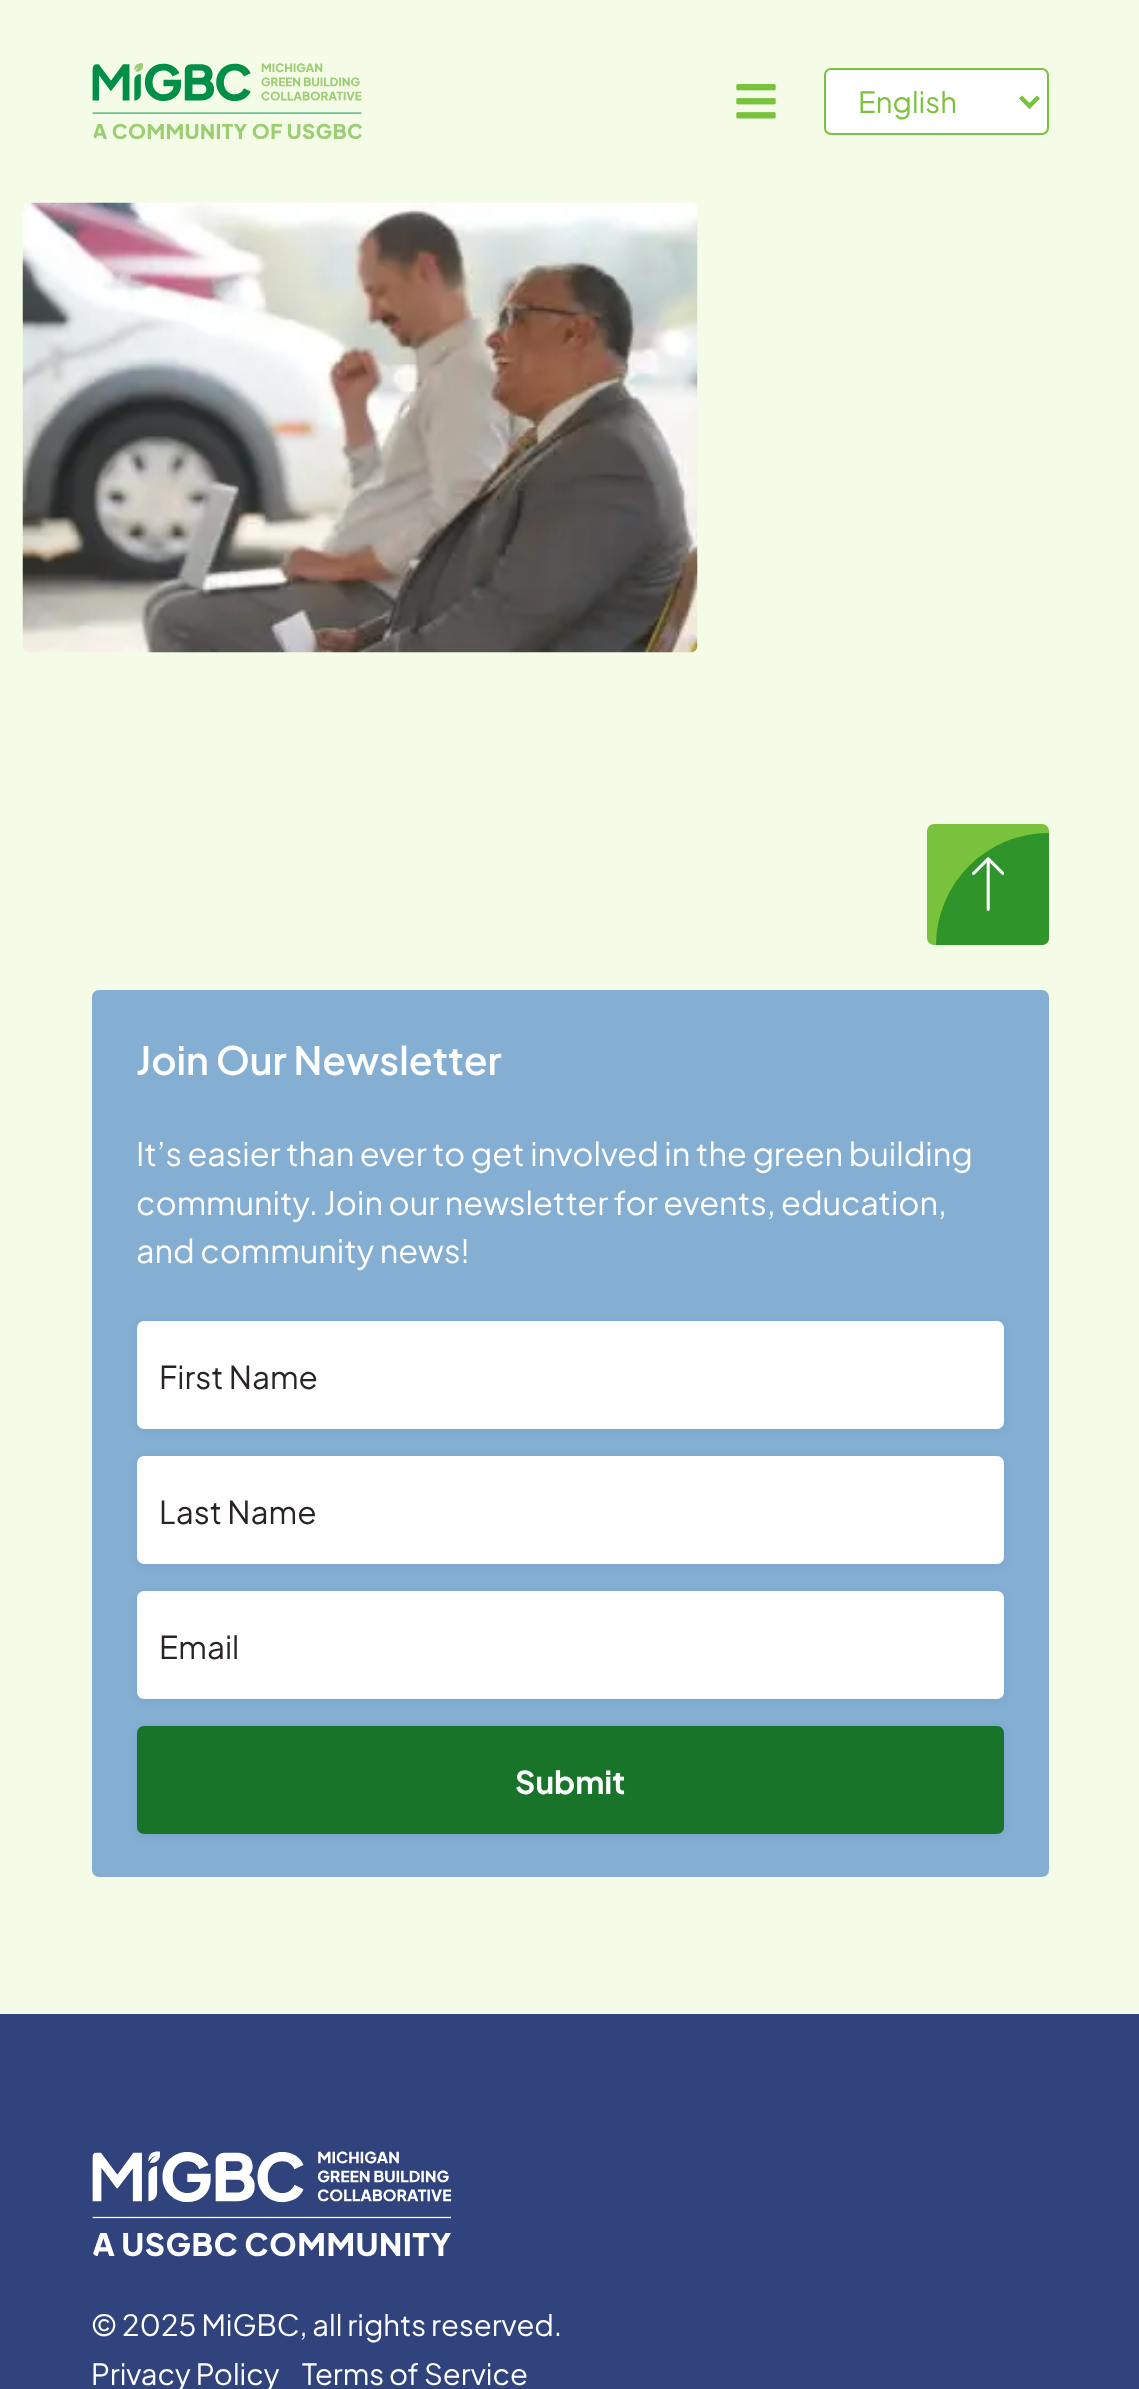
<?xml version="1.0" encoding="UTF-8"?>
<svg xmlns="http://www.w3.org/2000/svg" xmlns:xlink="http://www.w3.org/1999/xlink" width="1139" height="2389">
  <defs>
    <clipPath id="clip1"><rect x="927" y="824" width="122" height="121" rx="7" /></clipPath>
  </defs>
  <rect width="100%" height="100%" fill="#f4fbe6" />
  <image x="92" y="63" width="270" height="77" xlink:href="image1.png" />
  <image x="736" y="84" width="40" height="35" xlink:href="image2.png" />
  <rect x="825" y="69" width="223" height="65" rx="6" fill="#ffffff" stroke="#79c23d" stroke-width="2" />
  <path d="M 1020.5 97 l 9 9 l 9 -9" fill="none" stroke="#79c23d" stroke-width="4.5" />
  <image x="22" y="202" width="676" height="451" xlink:href="image3.png" />
  <rect x="927" y="824" width="122" height="121" rx="7" fill="#79c23d" />
  <g clip-path="url(#clip1)">
    <circle cx="1048.5" cy="945.5" r="112.5" fill="#2f942a" />
  </g>
  <image x="972" y="857" width="32" height="54" xlink:href="image4.png" />
  <rect x="92" y="990" width="957" height="887" rx="7" fill="#84afd3" />
  <rect x="137" y="1323" width="867" height="108" rx="7" fill="#121961" fill-opacity="0.08" filter="blur(4.5px)" />
  <rect x="137" y="1321" width="867" height="108" rx="7" fill="#ffffff" />
  <rect x="137" y="1458" width="867" height="108" rx="7" fill="#121961" fill-opacity="0.08" filter="blur(4.5px)" />
  <rect x="137" y="1456" width="867" height="108" rx="7" fill="#ffffff" />
  <rect x="137" y="1593" width="867" height="108" rx="7" fill="#121961" fill-opacity="0.08" filter="blur(4.5px)" />
  <rect x="137" y="1591" width="867" height="108" rx="7" fill="#ffffff" />
  <rect x="137" y="1728" width="867" height="108" rx="7" fill="#121961" fill-opacity="0.08" filter="blur(4.5px)" />
  <rect x="137" y="1726" width="867" height="108" rx="7" fill="#177428" />
  <rect y="2014" width="1139" height="375" fill="#30437d" />
  <image x="92" y="2151" width="360" height="106" xlink:href="image5.png" />
  <text x="858" y="113" style="font-family: Plus Jakarta Sans; font-size: 29.2px; fill: #79c23d">English</text>
  <text x="136" y="1075" style="font-family: Plus Jakarta Sans; font-size: 38.9px; font-weight: 600; fill: #ffffff">Join Our Newsletter</text>
  <text x="136" y="1166" style="font-family: Plus Jakarta Sans; font-size: 32.4px; fill: #ffffff">It’s easier than ever to get involved in the green building</text>
  <text x="136" y="1215" style="font-family: Plus Jakarta Sans; font-size: 32.4px; fill: #ffffff">community. Join our newsletter for events, education,</text>
  <text x="136" y="1263" style="font-family: Plus Jakarta Sans; font-size: 32.4px; fill: #ffffff">and community news!</text>
  <text x="159" y="1389" style="font-family: Plus Jakarta Sans; font-size: 31.5px; fill: #282326">First Name</text>
  <text x="159" y="1524" style="font-family: Plus Jakarta Sans; font-size: 31.5px; fill: #282326">Last Name</text>
  <text x="159" y="1659" style="font-family: Plus Jakarta Sans; font-size: 31.5px; fill: #282326">Email</text>
  <text x="515" y="1794" style="font-family: Plus Jakarta Sans; font-size: 31.5px; font-weight: bold; fill: #ffffff">Submit</text>
  <text x="91" y="2336" style="font-family: Plus Jakarta Sans; font-size: 29.2px; fill: #ffffff">© 2025 MiGBC, all rights reserved.</text>
  <text x="91" y="2385" style="font-family: Plus Jakarta Sans; font-size: 29.2px; fill: #ffffff">Privacy Policy</text>
  <text x="302" y="2385" style="font-family: Plus Jakarta Sans; font-size: 29.2px; fill: #ffffff">Terms of Service</text>
</svg>
